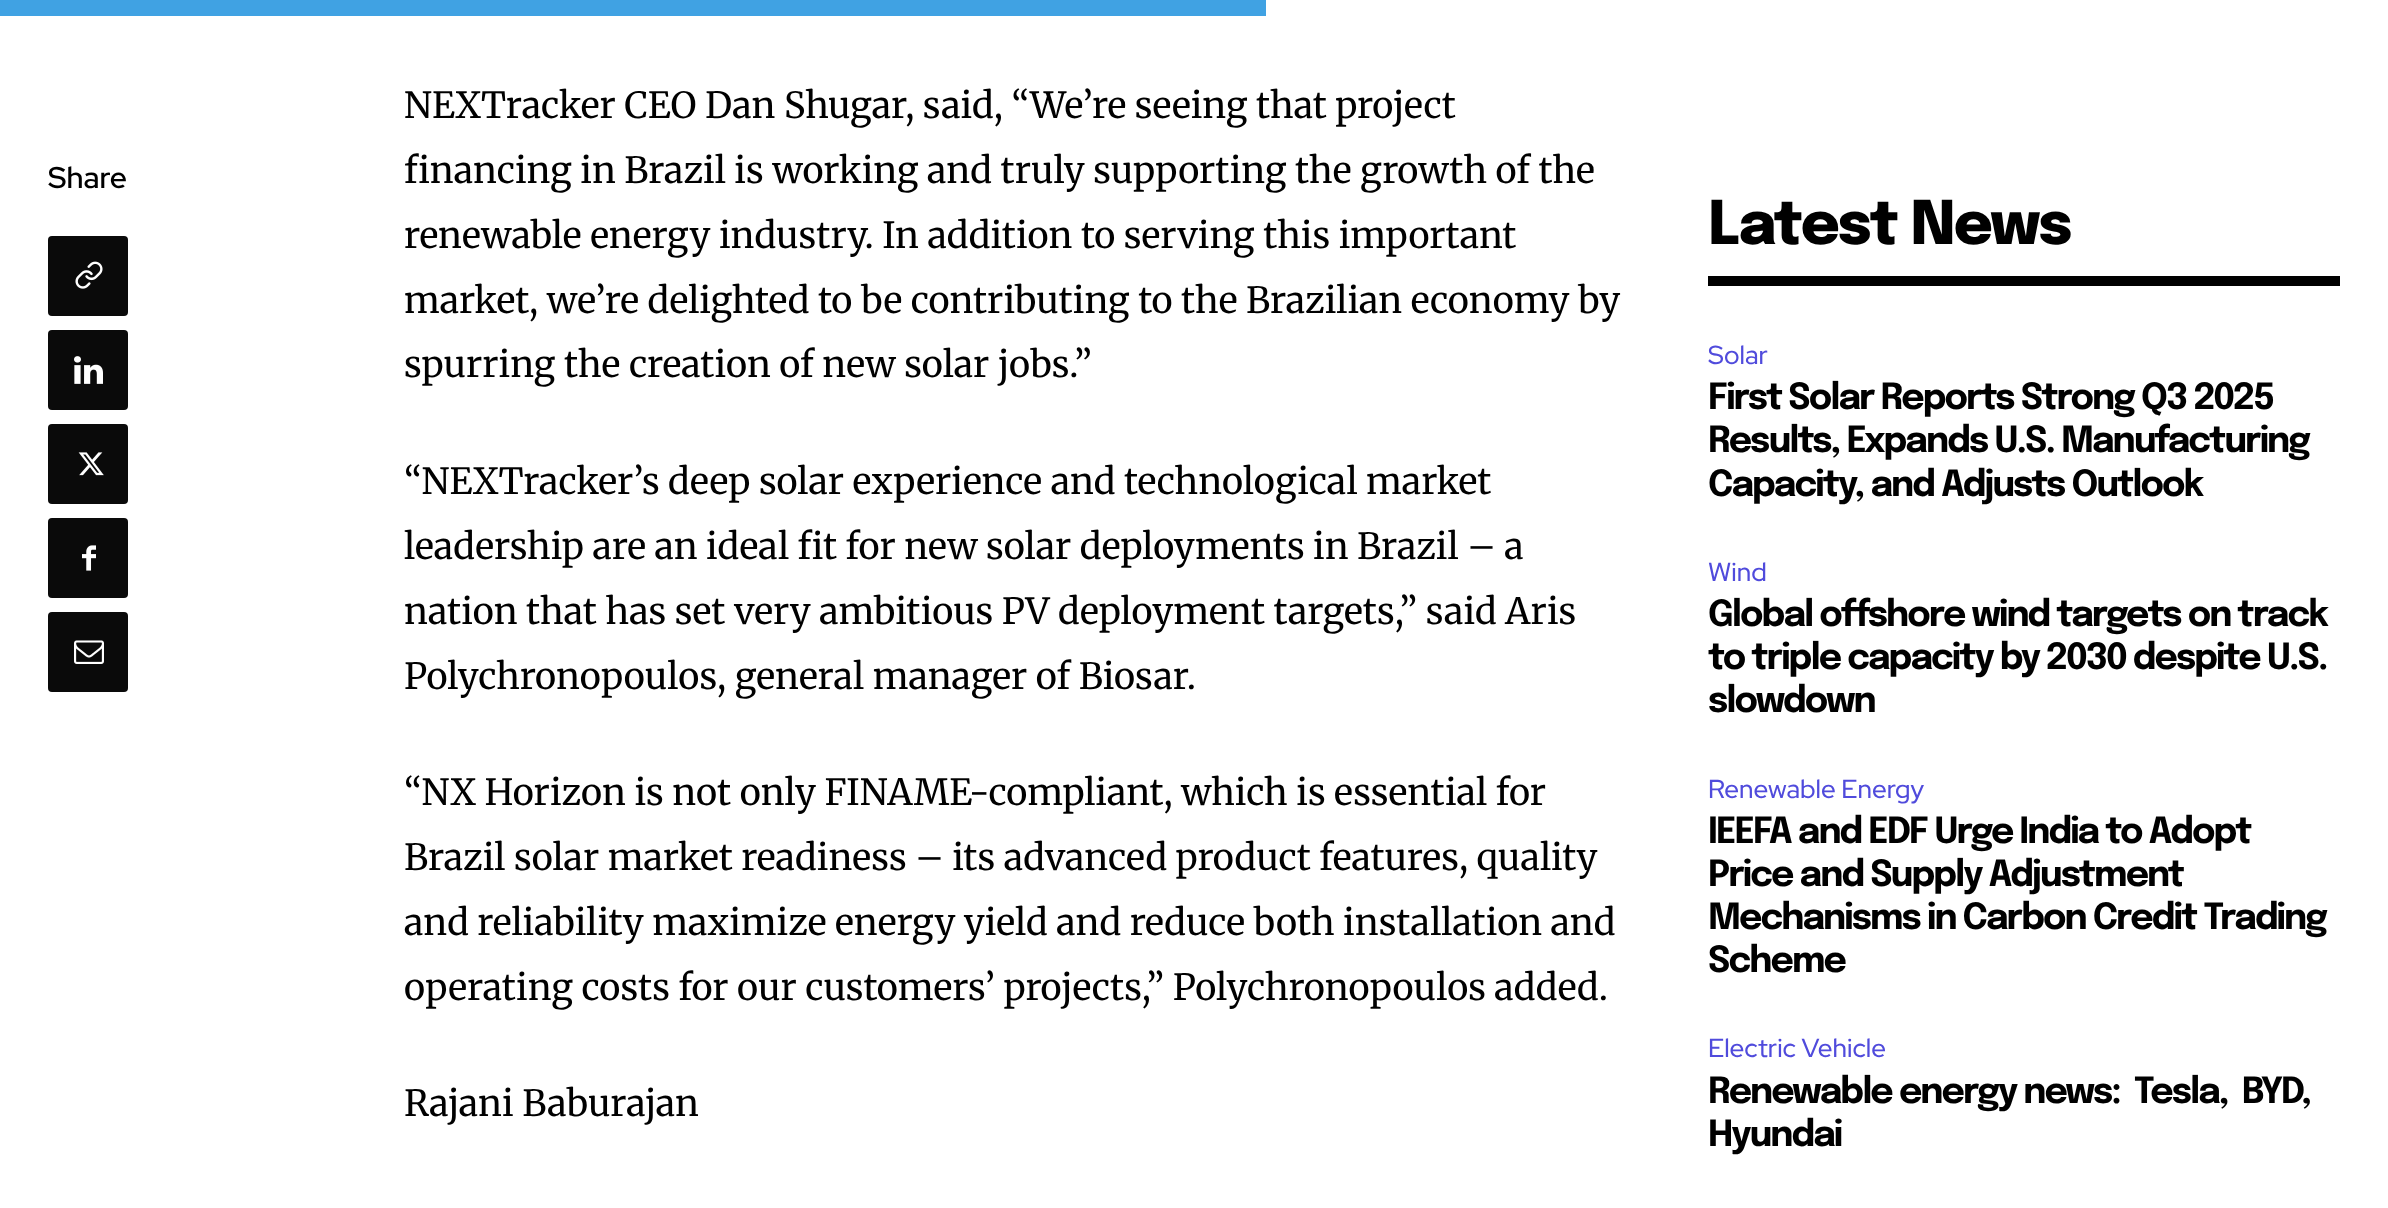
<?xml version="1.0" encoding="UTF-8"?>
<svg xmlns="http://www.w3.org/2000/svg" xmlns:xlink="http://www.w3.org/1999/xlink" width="2388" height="1208">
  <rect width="100%" height="100%" fill="#ffffff" />
  <rect width="1266" height="16" fill="#40a2e3" />
  <rect x="48" y="236" width="80" height="80" rx="4" fill="#0a0a0a" />
  <image x="75" y="261" width="28" height="28" xlink:href="image1.png" />
  <rect x="48" y="330" width="80" height="80" rx="4" fill="#0a0a0a" />
  <image x="74" y="356" width="29" height="28" xlink:href="image2.png" />
  <rect x="48" y="424" width="80" height="80" rx="4" fill="#0a0a0a" />
  <image x="78" y="452" width="26" height="24" xlink:href="image3.png" />
  <rect x="48" y="518" width="80" height="80" rx="4" fill="#0a0a0a" />
  <image x="82" y="545" width="14" height="26" xlink:href="image4.png" />
  <rect x="48" y="612" width="80" height="80" rx="4" fill="#0a0a0a" />
  <image x="74" y="640" width="30" height="24" xlink:href="image5.png" />
  <rect x="1708" y="276" width="632" height="10" fill="#000000" />
  <text x="48" y="188" style="font-family: Red Hat Display; font-size: 30px; font-weight: 600; fill: #000000">Share</text>
  <text x="404" y="118" style="font-family: Merriweather; font-size: 36px; font-weight: 300; fill: #000000">NEXTracker CEO Dan Shugar, said, “We’re seeing that project</text>
  <text x="404" y="183" style="font-family: Merriweather; font-size: 36px; font-weight: 300; fill: #000000">financing in Brazil is working and truly supporting the growth of the</text>
  <text x="404" y="248" style="font-family: Merriweather; font-size: 36px; font-weight: 300; fill: #000000">renewable energy industry. In addition to serving this important</text>
  <text x="404" y="313" style="font-family: Merriweather; font-size: 36px; font-weight: 300; fill: #000000">market, we’re delighted to be contributing to the Brazilian economy by</text>
  <text x="404" y="377" style="font-family: Merriweather; font-size: 36px; font-weight: 300; fill: #000000">spurring the creation of new solar jobs.”</text>
  <text x="404" y="494" style="font-family: Merriweather; font-size: 36px; font-weight: 300; fill: #000000">“NEXTracker’s deep solar experience and technological market</text>
  <text x="404" y="559" style="font-family: Merriweather; font-size: 36px; font-weight: 300; fill: #000000">leadership are an ideal fit for new solar deployments in Brazil – a</text>
  <text x="404" y="624" style="font-family: Merriweather; font-size: 36px; font-weight: 300; fill: #000000">nation that has set very ambitious PV deployment targets,” said Aris</text>
  <text x="404" y="689" style="font-family: Merriweather; font-size: 36px; font-weight: 300; fill: #000000">Polychronopoulos, general manager of Biosar.</text>
  <text x="404" y="805" style="font-family: Merriweather; font-size: 36px; font-weight: 300; fill: #000000">“NX Horizon is not only FINAME-compliant, which is essential for</text>
  <text x="404" y="870" style="font-family: Merriweather; font-size: 36px; font-weight: 300; fill: #000000">Brazil solar market readiness – its advanced product features, quality</text>
  <text x="404" y="935" style="font-family: Merriweather; font-size: 36px; font-weight: 300; fill: #000000">and reliability maximize energy yield and reduce both installation and</text>
  <text x="404" y="1000" style="font-family: Merriweather; font-size: 36px; font-weight: 300; fill: #000000">operating costs for our customers’ projects,” Polychronopoulos added.</text>
  <text x="404" y="1116" style="font-family: Merriweather; font-size: 36px; font-weight: 300; fill: #000000">Rajani Baburajan</text>
  <text x="1708" y="244" style="font-family: Epilogue; font-size: 60px; font-weight: 800; letter-spacing: -2px; fill: #000000">Latest News</text>
  <text x="1708" y="364" style="font-family: Red Hat Display; font-size: 26px; font-weight: 500; fill: #504bdc">Solar</text>
  <text x="1708" y="409" style="font-family: Epilogue; font-size: 36px; font-weight: bold; letter-spacing: -2px; fill: #000000">First Solar Reports Strong Q3 2025</text>
  <text x="1708" y="452" style="font-family: Epilogue; font-size: 36px; font-weight: bold; letter-spacing: -2px; fill: #000000">Results, Expands U.S. Manufacturing</text>
  <text x="1708" y="496" style="font-family: Epilogue; font-size: 36px; font-weight: bold; letter-spacing: -2px; fill: #000000">Capacity, and Adjusts Outlook</text>
  <text x="1708" y="581" style="font-family: Red Hat Display; font-size: 26px; font-weight: 500; fill: #504bdc">Wind</text>
  <text x="1708" y="626" style="font-family: Epilogue; font-size: 36px; font-weight: bold; letter-spacing: -2px; fill: #000000">Global offshore wind targets on track</text>
  <text x="1708" y="669" style="font-family: Epilogue; font-size: 36px; font-weight: bold; letter-spacing: -2px; fill: #000000">to triple capacity by 2030 despite U.S.</text>
  <text x="1708" y="712" style="font-family: Epilogue; font-size: 36px; font-weight: bold; letter-spacing: -2px; fill: #000000">slowdown</text>
  <text x="1708" y="798" style="font-family: Red Hat Display; font-size: 26px; font-weight: 500; fill: #504bdc">Renewable Energy</text>
  <text x="1708" y="843" style="font-family: Epilogue; font-size: 36px; font-weight: bold; letter-spacing: -2px; fill: #000000">IEEFA and EDF Urge India to Adopt</text>
  <text x="1708" y="886" style="font-family: Epilogue; font-size: 36px; font-weight: bold; letter-spacing: -2px; fill: #000000">Price and Supply Adjustment</text>
  <text x="1708" y="929" style="font-family: Epilogue; font-size: 36px; font-weight: bold; letter-spacing: -2px; fill: #000000">Mechanisms in Carbon Credit Trading</text>
  <text x="1708" y="972" style="font-family: Epilogue; font-size: 36px; font-weight: bold; letter-spacing: -2px; fill: #000000">Scheme</text>
  <text x="1708" y="1057" style="font-family: Red Hat Display; font-size: 26px; font-weight: 500; fill: #504bdc">Electric Vehicle</text>
  <text x="1708" y="1103" style="font-family: Epilogue; font-size: 36px; font-weight: bold; letter-spacing: -2px; fill: #000000" xml:space="preserve">Renewable energy news:  Tesla,  BYD,</text>
  <text x="1708" y="1146" style="font-family: Epilogue; font-size: 36px; font-weight: bold; letter-spacing: -2px; fill: #000000">Hyundai</text>
</svg>
